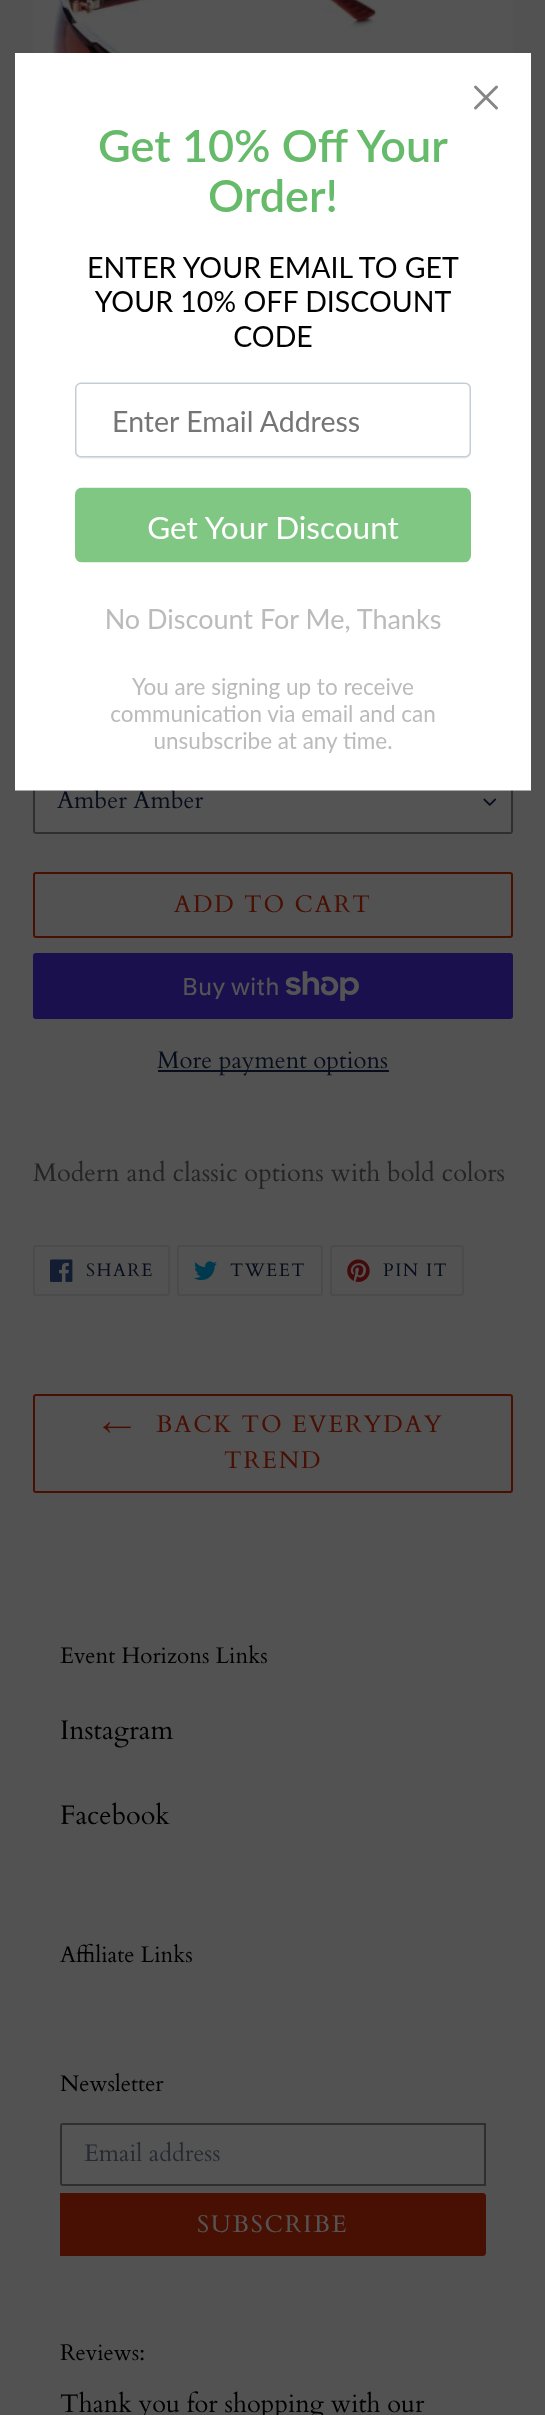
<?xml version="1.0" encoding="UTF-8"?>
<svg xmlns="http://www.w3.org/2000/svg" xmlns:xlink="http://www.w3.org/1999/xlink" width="545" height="2415">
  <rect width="100%" height="100%" fill="#f8f8f8" />
  <image x="33" y="0" width="480" height="53" xlink:href="image2.png" />
  <rect x="33" y="768" width="480" height="66" rx="3" fill="#ffffff" />
  <image x="483" y="798" width="14" height="8" xlink:href="image3.png" />
  <rect x="34" y="769" width="478" height="64" rx="2" fill="none" stroke="#909090" stroke-width="2" />
  <rect x="34" y="873" width="478" height="64" rx="2" fill="none" stroke="#da2f0c" stroke-width="2" />
  <rect x="33" y="953" width="480" height="66" rx="3" fill="#5433eb" />
  <image x="285" y="971" width="74" height="30" xlink:href="image4.png" />
  <rect x="158" y="1070" width="231" height="2" fill="#162950" />
  <rect x="34" y="1246" width="135" height="49" rx="2" fill="none" stroke="#e4e4e4" stroke-width="2" />
  <image x="50" y="1259" width="23" height="23" xlink:href="image5.png" />
  <rect x="178" y="1246" width="144" height="49" rx="2" fill="none" stroke="#e4e4e4" stroke-width="2" />
  <image x="194" y="1261" width="23" height="20" xlink:href="image6.png" />
  <rect x="331" y="1246" width="132" height="49" rx="2" fill="none" stroke="#e4e4e4" stroke-width="2" />
  <image x="347" y="1259" width="23" height="23" xlink:href="image7.png" />
  <rect x="34" y="1395" width="478" height="97" rx="2" fill="none" stroke="#da2f0c" stroke-width="2" />
  <image x="103" y="1422" width="28" height="11" xlink:href="image8.png" />
  <path d="M 63 2124 h 422 v 61 h -422 c -1 0 -2 -1 -2 -2 v -57 c 0 -1 1 -2 2 -2 z" fill="#ffffff" stroke="#909090" stroke-width="2" />
  <path d="M 60 2193 h 423 c 1.5 0 3 1.5 3 3 v 57 c 0 1.5 -1.5 3 -3 3 h -423 z" fill="#da2f0c" />
  <text x="57" y="808" style="font-family: Cardo; font-size: 24px; fill: #162950">Amber Amber</text>
  <text x="174" y="912" style="font-family: Cardo; font-size: 24px; letter-spacing: 1.9px; fill: #da2f0c">ADD TO CART</text>
  <text x="182" y="995" style="font-family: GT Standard; font-size: 24px; fill: #ffffff">Buy with</text>
  <text x="157" y="1068" style="font-family: Cardo; font-size: 24px; fill: #162950">More payment options</text>
  <text x="33" y="1181" style="font-family: Cardo; font-size: 25.5px; fill: #6d6d6d">Modern and classic options with bold colors</text>
  <text x="86" y="1276" style="font-family: Cardo; font-size: 18px; letter-spacing: 1.5px; fill: #162950">SHARE</text>
  <text x="230" y="1276" style="font-family: Cardo; font-size: 18px; letter-spacing: 1.5px; fill: #162950">TWEET</text>
  <text x="383" y="1276" style="font-family: Cardo; font-size: 18px; letter-spacing: 1.5px; fill: #162950">PIN IT</text>
  <text x="156" y="1432" style="font-family: Cardo; font-size: 24px; letter-spacing: 1.9px; fill: #da2f0c">BACK TO EVERYDAY</text>
  <text x="224" y="1468" style="font-family: Cardo; font-size: 24px; letter-spacing: 1.9px; fill: #da2f0c">TREND</text>
  <text x="60" y="1663" style="font-family: Cardo; font-size: 22.5px; fill: #000000">Event Horizons Links</text>
  <text x="60" y="1739" style="font-family: Cardo; font-size: 27px; fill: #000000">Instagram</text>
  <text x="60" y="1824" style="font-family: Cardo; font-size: 27px; fill: #000000">Facebook</text>
  <text x="60" y="1962" style="font-family: Cardo; font-size: 22.5px; fill: #000000">Affiliate Links</text>
  <text x="60" y="2091" style="font-family: Cardo; font-size: 22.5px; fill: #000000">Newsletter</text>
  <text x="84" y="2161" style="font-family: Cardo; font-size: 24px; fill: #737f96">Email address</text>
  <text x="197" y="2232" style="font-family: Cardo; font-size: 24px; letter-spacing: 1.9px; fill: #ffffff">SUBSCRIBE</text>
  <text x="60" y="2360" style="font-family: Cardo; font-size: 22.5px; fill: #000000">Reviews:</text>
  <text x="60" y="2412" style="font-family: Cardo; font-size: 25.5px; fill: #000000">Thank you for shopping with our</text>
  <image x="0" y="0" width="545" height="2415" xlink:href="image1.png" />
</svg>
